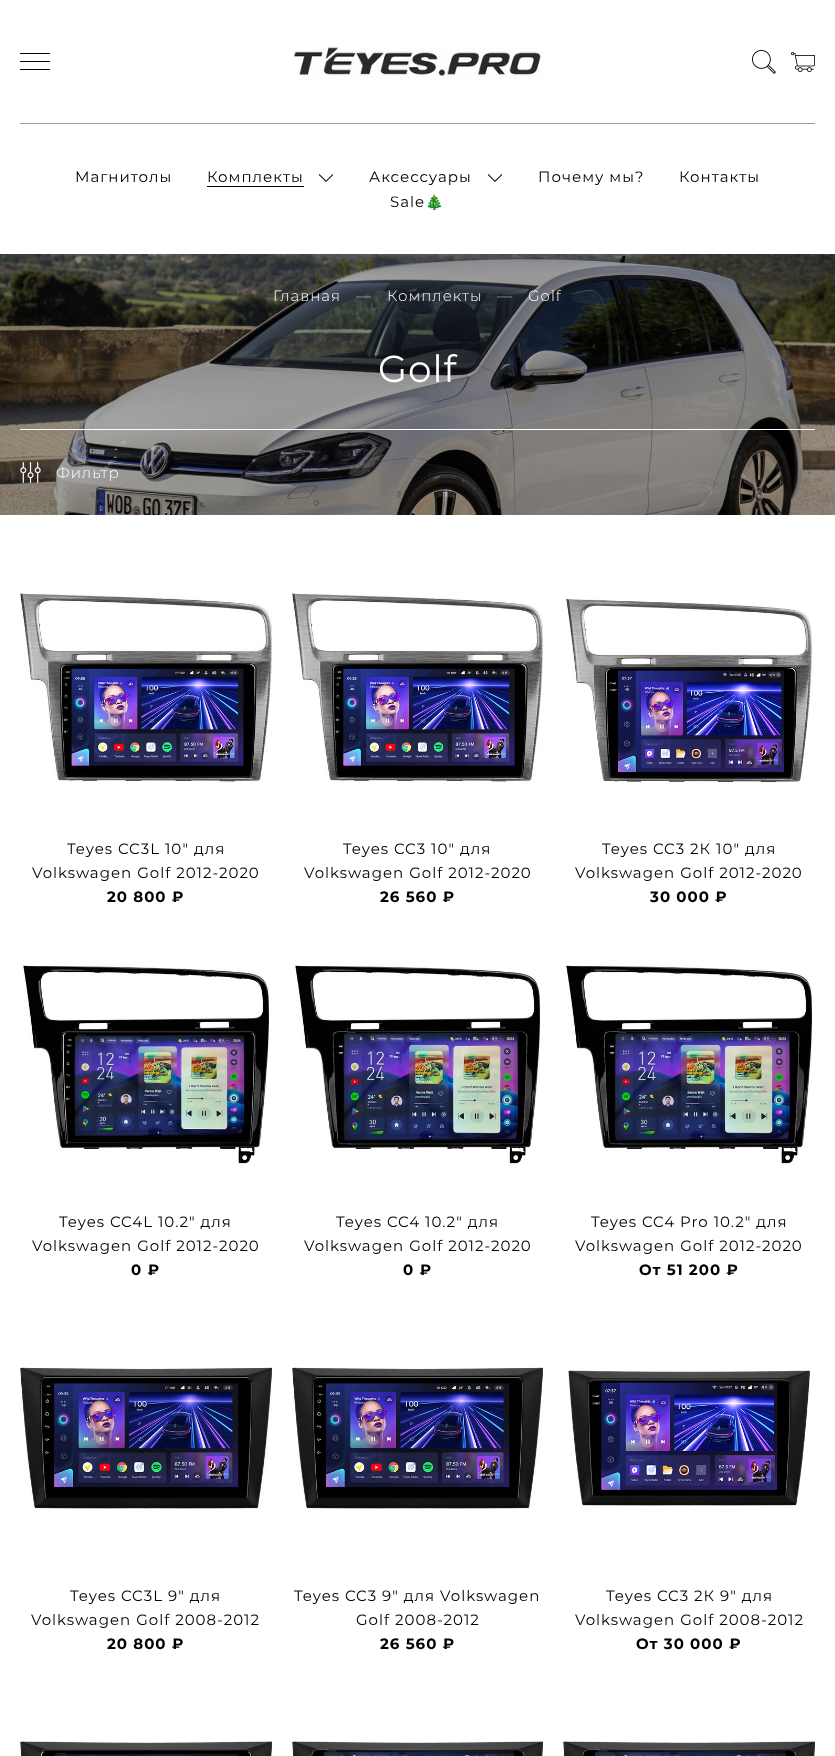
<?xml version="1.0" encoding="UTF-8"?>
<svg xmlns="http://www.w3.org/2000/svg" xmlns:xlink="http://www.w3.org/1999/xlink" width="835" height="1756">
  <rect width="100%" height="100%" fill="#ffffff" />
  <rect x="20" y="53" width="30" height="1" fill="#000000" />
  <rect x="20" y="61" width="30" height="1" fill="#000000" />
  <rect x="20" y="69" width="30" height="1" fill="#000000" />
  <image x="293" y="46" width="249" height="34" xlink:href="image1.png" />
  <image x="752" y="50" width="24" height="24" xlink:href="image2.png" />
  <image x="791" y="52" width="24" height="20" xlink:href="image3.png" />
  <rect x="20" y="123" width="795" height="1" fill="#9c9c9c" />
  <rect x="207" y="186" width="97" height="1" fill="#000000" />
  <image x="318" y="174" width="16" height="8" xlink:href="image4.png" />
  <image x="487" y="174" width="16" height="8" xlink:href="image4.png" />
  <image x="0" y="254" width="835" height="261" xlink:href="image5.png" />
  <rect x="20" y="429" width="795" height="1" fill="#ffffff" />
  <image x="20" y="462" width="21" height="21" xlink:href="image6.png" />
  <image x="20" y="593" width="252" height="190" xlink:href="image7.png" />
  <image x="292" y="590" width="251" height="193" xlink:href="image8.png" />
  <image x="566" y="598" width="247" height="185" xlink:href="image9.png" />
  <image x="23" y="964" width="246" height="200" xlink:href="image10.png" />
  <image x="295" y="964" width="245" height="200" xlink:href="image11.png" />
  <image x="566" y="964" width="246" height="200" xlink:href="image12.png" />
  <image x="20" y="1367" width="252" height="142" xlink:href="image13.png" />
  <image x="292" y="1367" width="251" height="142" xlink:href="image14.png" />
  <image x="568" y="1370" width="242" height="136" xlink:href="image15.png" />
  <image x="20" y="1741" width="252" height="15" xlink:href="image16.png" />
  <image x="292" y="1741" width="251" height="15" xlink:href="image17.png" />
  <image x="563" y="1741" width="252" height="15" xlink:href="image18.png" />
  <text x="75" y="182" style="font-family: Montserrat; font-size: 15px; letter-spacing: 1px; fill: #000000">Магнитолы</text>
  <text x="207" y="182" style="font-family: Montserrat; font-size: 15px; letter-spacing: 1px; fill: #000000">Комплекты</text>
  <text x="369" y="182" style="font-family: Montserrat; font-size: 15px; letter-spacing: 1px; fill: #000000">Аксессуары</text>
  <text x="538" y="182" style="font-family: Montserrat; font-size: 15px; letter-spacing: 1px; fill: #000000">Почему мы?</text>
  <text x="679" y="182" style="font-family: Montserrat; font-size: 15px; letter-spacing: 1px; fill: #000000">Контакты</text>
  <text x="390" y="207" style="font-family: Montserrat; font-size: 15px; letter-spacing: 1px; fill: #000000">Sale</text>
  <text x="425" y="207" style="font-family: Noto Color Emoji; font-size: 15px; letter-spacing: 1px; fill: #000000">🎄</text>
  <text x="273" y="301" style="font-family: Montserrat; font-size: 15px; font-weight: 300; letter-spacing: 1px; fill: #ffffff">Главная</text>
  <text x="356" y="301" style="font-family: Montserrat; font-size: 15px; font-weight: 300; letter-spacing: 1px; fill: #c1c4c5">—</text>
  <text x="387" y="301" style="font-family: Montserrat; font-size: 15px; font-weight: 300; letter-spacing: 1px; fill: #ffffff">Комплекты</text>
  <text x="497" y="301" style="font-family: Montserrat; font-size: 15px; font-weight: 300; letter-spacing: 1px; fill: #bbbdc0">—</text>
  <text x="528" y="301" style="font-family: Montserrat; font-size: 15px; font-weight: 300; letter-spacing: 1px; fill: #ffffff">Golf</text>
  <text x="378" y="382" style="font-family: Montserrat; font-size: 37.5px; letter-spacing: 1px; fill: #ffffff">Golf</text>
  <text x="56" y="478" style="font-family: Montserrat; font-size: 15px; font-weight: 300; letter-spacing: 1px; fill: #ffffff">Фильтр</text>
  <text x="67" y="854" style="font-family: Montserrat; font-size: 15px; letter-spacing: 1px; fill: #000000">Teyes CC3L 10" для</text>
  <text x="32" y="878" style="font-family: Montserrat; font-size: 15px; letter-spacing: 1px; fill: #000000">Volkswagen Golf 2012-2020</text>
  <text x="107" y="902" style="font-family: Montserrat; font-size: 15px; font-weight: bold; letter-spacing: 1px; fill: #000000">20 800 ₽</text>
  <text x="343" y="854" style="font-family: Montserrat; font-size: 15px; letter-spacing: 1px; fill: #000000">Teyes CC3 10" для</text>
  <text x="304" y="878" style="font-family: Montserrat; font-size: 15px; letter-spacing: 1px; fill: #000000">Volkswagen Golf 2012-2020</text>
  <text x="380" y="902" style="font-family: Montserrat; font-size: 15px; font-weight: bold; letter-spacing: 1px; fill: #000000">26 560 ₽</text>
  <text x="602" y="854" style="font-family: Montserrat; font-size: 15px; letter-spacing: 1px; fill: #000000">Teyes CC3 2К 10" для</text>
  <text x="575" y="878" style="font-family: Montserrat; font-size: 15px; letter-spacing: 1px; fill: #000000">Volkswagen Golf 2012-2020</text>
  <text x="650" y="902" style="font-family: Montserrat; font-size: 15px; font-weight: bold; letter-spacing: 1px; fill: #000000">30 000 ₽</text>
  <text x="59" y="1227" style="font-family: Montserrat; font-size: 15px; letter-spacing: 1px; fill: #000000">Teyes CC4L 10.2" для</text>
  <text x="32" y="1251" style="font-family: Montserrat; font-size: 15px; letter-spacing: 1px; fill: #000000">Volkswagen Golf 2012-2020</text>
  <text x="131" y="1275" style="font-family: Montserrat; font-size: 15px; font-weight: bold; letter-spacing: 1px; fill: #000000">0 ₽</text>
  <text x="336" y="1227" style="font-family: Montserrat; font-size: 15px; letter-spacing: 1px; fill: #000000">Teyes CC4 10.2" для</text>
  <text x="304" y="1251" style="font-family: Montserrat; font-size: 15px; letter-spacing: 1px; fill: #000000">Volkswagen Golf 2012-2020</text>
  <text x="403" y="1275" style="font-family: Montserrat; font-size: 15px; font-weight: bold; letter-spacing: 1px; fill: #000000">0 ₽</text>
  <text x="591" y="1227" style="font-family: Montserrat; font-size: 15px; letter-spacing: 1px; fill: #000000">Teyes CC4 Pro 10.2" для</text>
  <text x="575" y="1251" style="font-family: Montserrat; font-size: 15px; letter-spacing: 1px; fill: #000000">Volkswagen Golf 2012-2020</text>
  <text x="639" y="1275" style="font-family: Montserrat; font-size: 15px; font-weight: bold; letter-spacing: 1px; fill: #000000">От 51 200 ₽</text>
  <text x="70" y="1601" style="font-family: Montserrat; font-size: 15px; letter-spacing: 1px; fill: #000000">Teyes CC3L 9" для</text>
  <text x="31" y="1625" style="font-family: Montserrat; font-size: 15px; letter-spacing: 1px; fill: #000000">Volkswagen Golf 2008-2012</text>
  <text x="107" y="1649" style="font-family: Montserrat; font-size: 15px; font-weight: bold; letter-spacing: 1px; fill: #000000">20 800 ₽</text>
  <text x="294" y="1601" style="font-family: Montserrat; font-size: 15px; letter-spacing: 1px; fill: #000000">Teyes CC3 9" для Volkswagen</text>
  <text x="356" y="1625" style="font-family: Montserrat; font-size: 15px; letter-spacing: 1px; fill: #000000">Golf 2008-2012</text>
  <text x="380" y="1649" style="font-family: Montserrat; font-size: 15px; font-weight: bold; letter-spacing: 1px; fill: #000000">26 560 ₽</text>
  <text x="606" y="1601" style="font-family: Montserrat; font-size: 15px; letter-spacing: 1px; fill: #000000">Teyes CC3 2К 9" для</text>
  <text x="575" y="1625" style="font-family: Montserrat; font-size: 15px; letter-spacing: 1px; fill: #000000">Volkswagen Golf 2008-2012</text>
  <text x="636" y="1649" style="font-family: Montserrat; font-size: 15px; font-weight: bold; letter-spacing: 1px; fill: #000000">От 30 000 ₽</text>
</svg>
